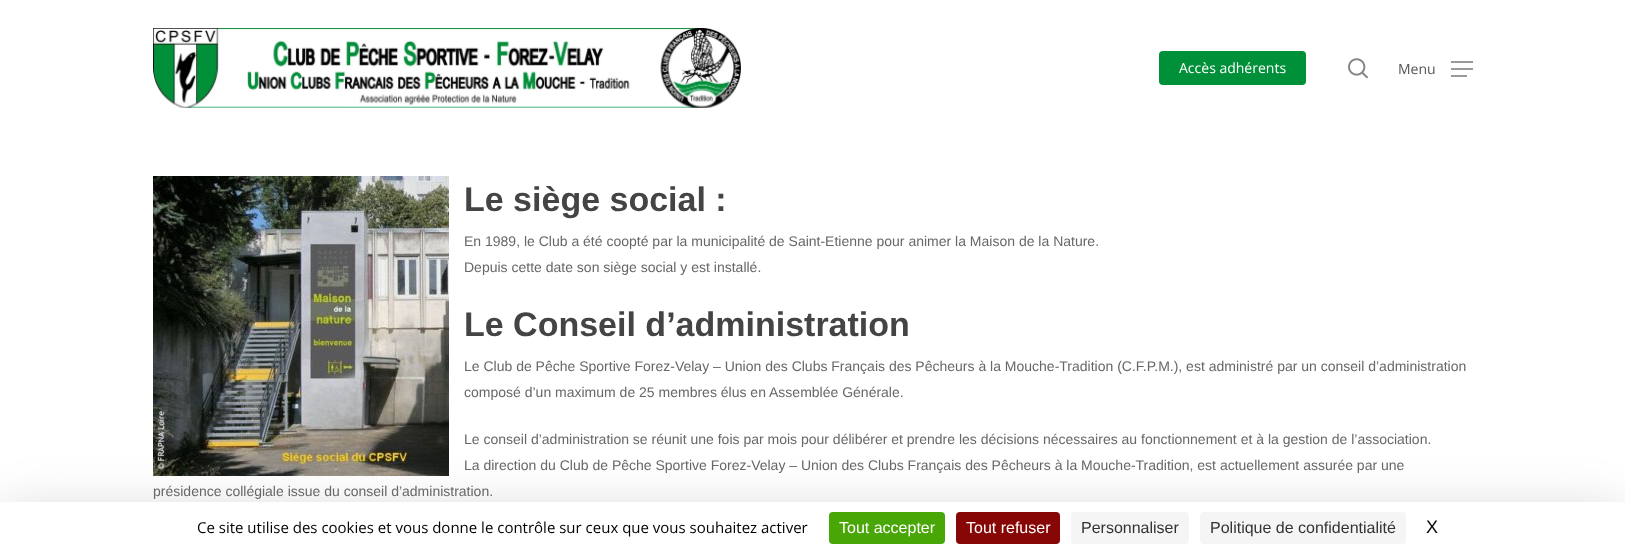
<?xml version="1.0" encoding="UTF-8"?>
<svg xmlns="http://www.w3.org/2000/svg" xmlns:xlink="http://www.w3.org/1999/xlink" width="1625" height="554">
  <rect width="100%" height="100%" fill="#ffffff" />
  <image x="153" y="28" width="588" height="80" xlink:href="image1.png" />
  <rect x="1159" y="51" width="147" height="34" rx="4" fill="#009039" />
  <image x="1348" y="58" width="20" height="21" xlink:href="image2.png" />
  <rect x="1451" y="61" width="22" height="2" fill="#999999" />
  <rect x="1451" y="75" width="16" height="2" fill="#999999" />
  <rect x="1451" y="68" width="22" height="2" fill="#999999" />
  <image x="153" y="176" width="296" height="300" xlink:href="image3.png" />
  <rect y="522" width="1625" height="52" fill="#000000" fill-opacity="0.25" filter="blur(30px)" />
  <rect y="502" width="1625" height="52" fill="#ffffff" />
  <rect x="829" y="512" width="116" height="32" rx="4" fill="#49a607" />
  <rect x="956" y="512" width="104" height="32" rx="4" fill="#870707" />
  <rect x="1071" y="512" width="118" height="32" rx="4" fill="#f5f5f5" />
  <rect x="1200" y="512" width="206" height="32" rx="4" fill="#f5f5f5" />
  <text x="1179" y="73" style="font-family: Open Sans; font-size: 14px; fill: #ffffff">Accès adhérents</text>
  <text x="1398" y="74" style="font-family: Open Sans; font-size: 14px; fill: #555555">Menu</text>
  <text x="464" y="211" style="font-family: Liberation Sans; font-size: 34px; font-weight: bold; fill: #444444">Le siège social :</text>
  <text x="464" y="246" style="font-family: Liberation Sans; font-size: 14px; fill: #676767">En 1989, le Club a été coopté par la municipalité de Saint-Etienne pour animer la Maison de la Nature.</text>
  <text x="464" y="272" style="font-family: Liberation Sans; font-size: 14px; fill: #676767">Depuis cette date son siège social y est installé.</text>
  <text x="464" y="336" style="font-family: Liberation Sans; font-size: 34px; font-weight: bold; fill: #444444">Le Conseil d’administration</text>
  <text x="464" y="371" style="font-family: Liberation Sans; font-size: 14px; fill: #676767">Le Club de Pêche Sportive Forez-Velay – Union des Clubs Français des Pêcheurs à la Mouche-Tradition (C.F.P.M.), est administré par un conseil d’administration</text>
  <text x="464" y="397" style="font-family: Liberation Sans; font-size: 14px; fill: #676767">composé d’un maximum de 25 membres élus en Assemblée Générale.</text>
  <text x="464" y="444" style="font-family: Liberation Sans; font-size: 14px; fill: #676767">Le conseil d’administration se réunit une fois par mois pour délibérer et prendre les décisions nécessaires au fonctionnement et à la gestion de l’association.</text>
  <text x="464" y="470" style="font-family: Liberation Sans; font-size: 14px; fill: #676767">La direction du Club de Pêche Sportive Forez-Velay – Union des Clubs Français des Pêcheurs à la Mouche-Tradition, est actuellement assurée par une</text>
  <text x="153" y="496" style="font-family: Liberation Sans; font-size: 14px; fill: #676767">présidence collégiale issue du conseil d’administration.</text>
  <text x="197" y="533" style="font-family: Open Sans; font-size: 15px; fill: #000000">Ce site utilise des cookies et vous donne le contrôle sur ceux que vous souhaitez activer</text>
  <text x="839" y="533" style="font-family: Liberation Sans; font-size: 16px; fill: #ffffff">Tout accepter</text>
  <text x="966" y="533" style="font-family: Liberation Sans; font-size: 16px; fill: #ffffff">Tout refuser</text>
  <text x="1081" y="533" style="font-family: Liberation Sans; font-size: 16px; fill: #333333">Personnaliser</text>
  <text x="1210" y="533" style="font-family: Liberation Sans; font-size: 16px; fill: #333333">Politique de confidentialité</text>
  <text x="1426" y="533" style="font-family: Liberation Sans; font-size: 18px; fill: #000000">X</text>
</svg>
